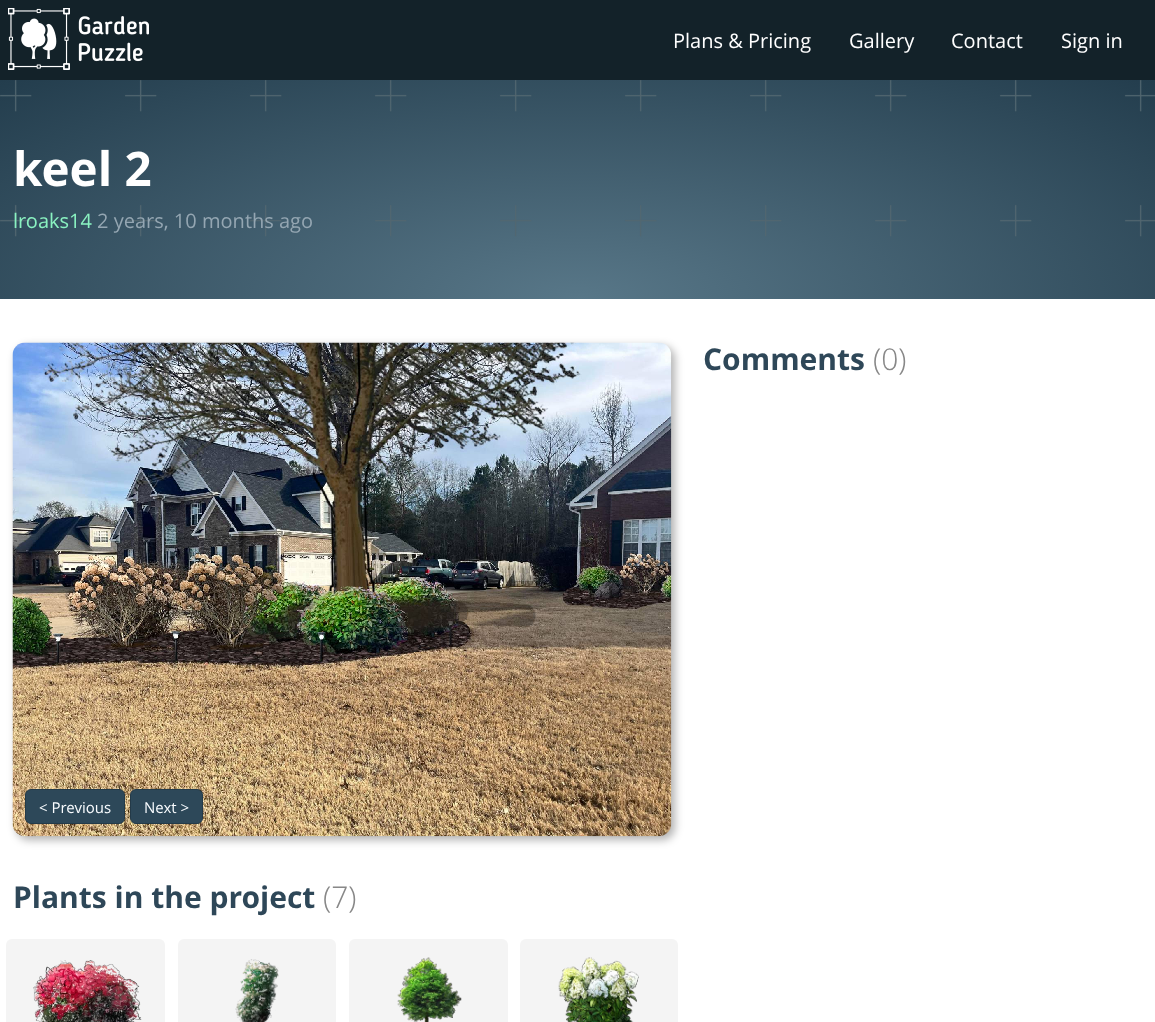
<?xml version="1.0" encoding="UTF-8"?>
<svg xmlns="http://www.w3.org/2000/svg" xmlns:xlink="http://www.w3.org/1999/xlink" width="1155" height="1022">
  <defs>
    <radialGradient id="g1" gradientUnits="userSpaceOnUse" cx="0" cy="0" r="1" gradientTransform="matrix(817 0 0 309 578 299)"><stop offset="0" stop-color="#587788" /><stop offset="1" stop-color="#233d4d" /></radialGradient>
  </defs>
  <rect width="100%" height="100%" fill="#ffffff" />
  <rect width="1155" height="80" fill="#132229" />
  <image x="8" y="8" width="141" height="62" xlink:href="image1.png" />
  <rect y="80" width="1155" height="219" fill="url(#g1)" />
  <image x="0" y="80" width="1155" height="157" xlink:href="image2.png" />
  <rect x="16" y="346" width="659" height="494" rx="13" fill="#000000" fill-opacity="0.3" filter="blur(4px)" />
  <image x="12" y="342" width="660" height="495" xlink:href="image3.png" />
  <rect x="25.5" y="789.5" width="99" height="34" rx="5.5" fill="#2d4859" stroke="#243a48" />
  <rect x="130.5" y="789.5" width="72" height="34" rx="5.5" fill="#2d4859" stroke="#243a48" />
  <rect x="6" y="939" width="159" height="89" rx="6" fill="#f4f4f4" />
  <image x="33" y="960" width="109" height="62" xlink:href="image4.png" />
  <rect x="178" y="939" width="158" height="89" rx="6" fill="#f4f4f4" />
  <image x="235" y="959" width="44" height="63" xlink:href="image5.png" />
  <rect x="349" y="939" width="159" height="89" rx="6" fill="#f4f4f4" />
  <image x="397" y="957" width="65" height="65" xlink:href="image6.png" />
  <rect x="520" y="939" width="158" height="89" rx="6" fill="#f4f4f4" />
  <image x="558" y="957" width="81" height="65" xlink:href="image7.png" />
  <text x="673" y="48" style="font-family: Open Sans; font-size: 20px; fill: #ffffff">Plans &amp; Pricing</text>
  <text x="849" y="48" style="font-family: Open Sans; font-size: 20px; fill: #ffffff">Gallery</text>
  <text x="951" y="48" style="font-family: Open Sans; font-size: 20px; fill: #ffffff">Contact</text>
  <text x="1061" y="48" style="font-family: Open Sans; font-size: 20px; fill: #ffffff">Sign in</text>
  <text x="13" y="186" style="font-family: Open Sans; font-size: 47.5px; font-weight: bold; fill: #ffffff">keel 2</text>
  <text x="13" y="228" style="font-family: Open Sans; font-size: 20px; fill: #8af2c1">lroaks14</text>
  <text x="97" y="228" style="font-family: Open Sans; font-size: 20px; fill: #94a6b2">2 years, 10 months ago</text>
  <text x="703" y="370" style="font-family: Open Sans; font-size: 30px; font-weight: bold; fill: #2e4758">Comments</text>
  <text x="873" y="370" style="font-family: Open Sans; font-size: 30px; font-weight: 300; fill: #888888">(0)</text>
  <text x="39" y="813" style="font-family: Open Sans; font-size: 15px; fill: #f9fcff">&lt; Previous</text>
  <text x="144" y="813" style="font-family: Open Sans; font-size: 15px; fill: #f9fcff">Next &gt;</text>
  <text x="13" y="908" style="font-family: Open Sans; font-size: 30px; font-weight: bold; fill: #2e4758">Plants in the project</text>
  <text x="323" y="908" style="font-family: Open Sans; font-size: 30px; font-weight: 300; fill: #888888">(7)</text>
</svg>
